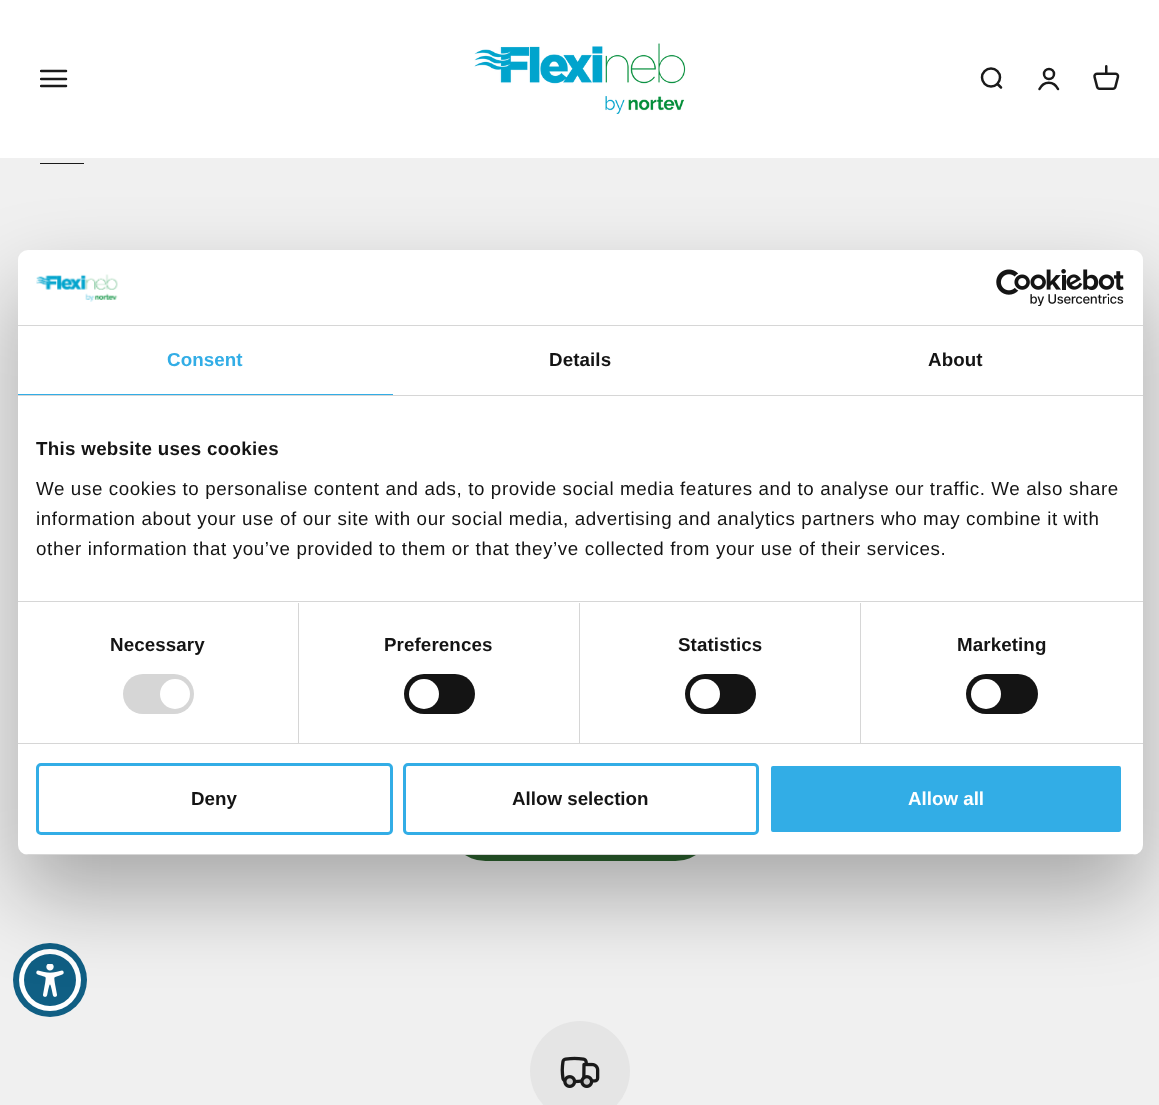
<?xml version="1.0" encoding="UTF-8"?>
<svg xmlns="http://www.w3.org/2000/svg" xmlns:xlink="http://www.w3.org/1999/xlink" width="1159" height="1105">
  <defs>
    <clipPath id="clip1"><rect x="40" y="65" width="28" height="28" /></clipPath>
    <clipPath id="clip2"><rect x="18" y="250" width="1125" height="605" rx="10" /></clipPath>
  </defs>
  <rect width="100%" height="100%" fill="#f0f0f0" />
  <rect width="1159" height="158" fill="#ffffff" />
  <g clip-path="url(#clip1)">
    <path d="M 41 71 h 25 m -25 8 h 25 m -25 7 h 25" fill="none" stroke="#1a1a1a" stroke-width="2.5" stroke-linecap="round" />
  </g>
  <image x="474" y="43" width="212" height="71" xlink:href="image1.png" />
  <circle cx="991" cy="77.5" r="9" fill="none" stroke="#1a1a1a" stroke-width="2.5" />
  <path d="M 997.5 84 l 3.5 3.5" fill="none" stroke="#1a1a1a" stroke-width="2.5" stroke-linecap="round" stroke-linejoin="round" />
  <circle cx="1049" cy="74" r="5" fill="none" stroke="#1a1a1a" stroke-width="2.5" />
  <path d="M 1039.5 89 c 4 -8.5 14.5 -8.5 18.5 0" fill="none" stroke="#1a1a1a" stroke-width="2.5" stroke-linecap="round" />
  <image x="1093" y="65" width="27" height="25" xlink:href="image2.png" />
  <rect x="40" y="163" width="44" height="1" fill="#1a1a1a" />
  <rect x="448" y="786" width="265" height="75" rx="37.5" fill="#2c632f" />
  <circle cx="580" cy="1071" r="50" fill="#e5e5e5" />
  <image x="560" y="1056" width="40" height="32" xlink:href="image3.png" />
  <circle cx="50" cy="980" r="37" fill="#105f84" />
  <circle cx="50" cy="980" r="31" fill="#ffffff" />
  <circle cx="50" cy="980" r="26" fill="#105f84" />
  <image x="36" y="964" width="28" height="33" xlink:href="image6.png" />
  <rect x="18" y="290" width="1125" height="605" rx="10" fill="#000000" fill-opacity="0.3" filter="blur(42.5px)" />
  <rect x="18" y="250" width="1125" height="605" rx="10" fill="#ffffff" />
  <rect x="18" y="325" width="1125" height="1" fill="#d6d6d6" />
  <image x="36" y="274" width="82" height="28" xlink:href="image4.png" />
  <image x="996" y="269" width="128" height="37" xlink:href="image5.png" />
  <rect x="18" y="395" width="1125" height="1" fill="#d6d6d6" />
  <rect x="18" y="394" width="375" height="1" fill="#32ade6" />
  <rect x="18" y="601" width="1125" height="1" fill="#d6d6d6" />
  <rect x="18" y="743" width="1125" height="1" fill="#d6d6d6" />
  <rect x="298" y="603" width="1" height="140" fill="#d6d6d6" />
  <rect x="123" y="674" width="71" height="40" rx="20" fill="#d6d6d6" />
  <circle cx="175" cy="694" r="15" fill="#ffffff" />
  <rect x="579" y="603" width="1" height="140" fill="#d6d6d6" />
  <rect x="404" y="674" width="71" height="40" rx="20" fill="#141414" />
  <circle cx="424" cy="694" r="15" fill="#ffffff" />
  <rect x="860" y="603" width="1" height="140" fill="#d6d6d6" />
  <rect x="685" y="674" width="71" height="40" rx="20" fill="#141414" />
  <circle cx="705" cy="694" r="15" fill="#ffffff" />
  <rect x="966" y="674" width="72" height="40" rx="20" fill="#141414" />
  <circle cx="986" cy="694" r="15" fill="#ffffff" />
  <g clip-path="url(#clip2)">
    <rect x="18" y="854" width="1125" height="1" fill="#d6d6d6" />
  </g>
  <rect x="37.5" y="764.5" width="354" height="69" rx="3.5" fill="none" stroke="#32ade6" stroke-width="3" />
  <rect x="404.5" y="764.5" width="353" height="69" rx="3.5" fill="none" stroke="#32ade6" stroke-width="3" />
  <rect x="769.5" y="764.5" width="353" height="69" rx="3.5" fill="#32ade6" stroke="#ffffff" stroke-width="3" />
  <text x="167" y="366" style="font-family: Liberation Sans; font-size: 18.75px; font-weight: bold; letter-spacing: 0.1px; fill: #32ade6">Consent</text>
  <text x="549" y="366" style="font-family: Liberation Sans; font-size: 18.75px; font-weight: bold; letter-spacing: 0.1px; fill: #141414">Details</text>
  <text x="928" y="366" style="font-family: Liberation Sans; font-size: 18.75px; font-weight: bold; letter-spacing: 0.1px; fill: #141414">About</text>
  <text x="36" y="455" style="font-family: Liberation Sans; font-size: 18.75px; font-weight: bold; letter-spacing: 0.3px; fill: #141414">This website uses cookies</text>
  <text x="36" y="495" style="font-family: Liberation Sans; font-size: 18.75px; letter-spacing: 0.62px; fill: #141414">We use cookies to personalise content and ads, to provide social media features and to analyse our traffic. We also share</text>
  <text x="36" y="525" style="font-family: Liberation Sans; font-size: 18.75px; letter-spacing: 0.62px; fill: #141414">information about your use of our site with our social media, advertising and analytics partners who may combine it with</text>
  <text x="36" y="555" style="font-family: Liberation Sans; font-size: 18.75px; letter-spacing: 0.62px; fill: #141414">other information that you’ve provided to them or that they’ve collected from your use of their services.</text>
  <text x="110" y="651" style="font-family: Liberation Sans; font-size: 18.75px; font-weight: bold; letter-spacing: 0.1px; fill: #141414">Necessary</text>
  <text x="384" y="651" style="font-family: Liberation Sans; font-size: 18.75px; font-weight: bold; letter-spacing: 0.1px; fill: #141414">Preferences</text>
  <text x="678" y="651" style="font-family: Liberation Sans; font-size: 18.75px; font-weight: bold; letter-spacing: 0.1px; fill: #141414">Statistics</text>
  <text x="957" y="651" style="font-family: Liberation Sans; font-size: 18.75px; font-weight: bold; letter-spacing: 0.1px; fill: #141414">Marketing</text>
  <text x="191" y="805" style="font-family: Liberation Sans; font-size: 18.75px; font-weight: bold; fill: #141414">Deny</text>
  <text x="512" y="805" style="font-family: Liberation Sans; font-size: 18.75px; font-weight: bold; fill: #141414">Allow selection</text>
  <text x="908" y="805" style="font-family: Liberation Sans; font-size: 18.75px; font-weight: bold; fill: #ffffff">Allow all</text>
</svg>
